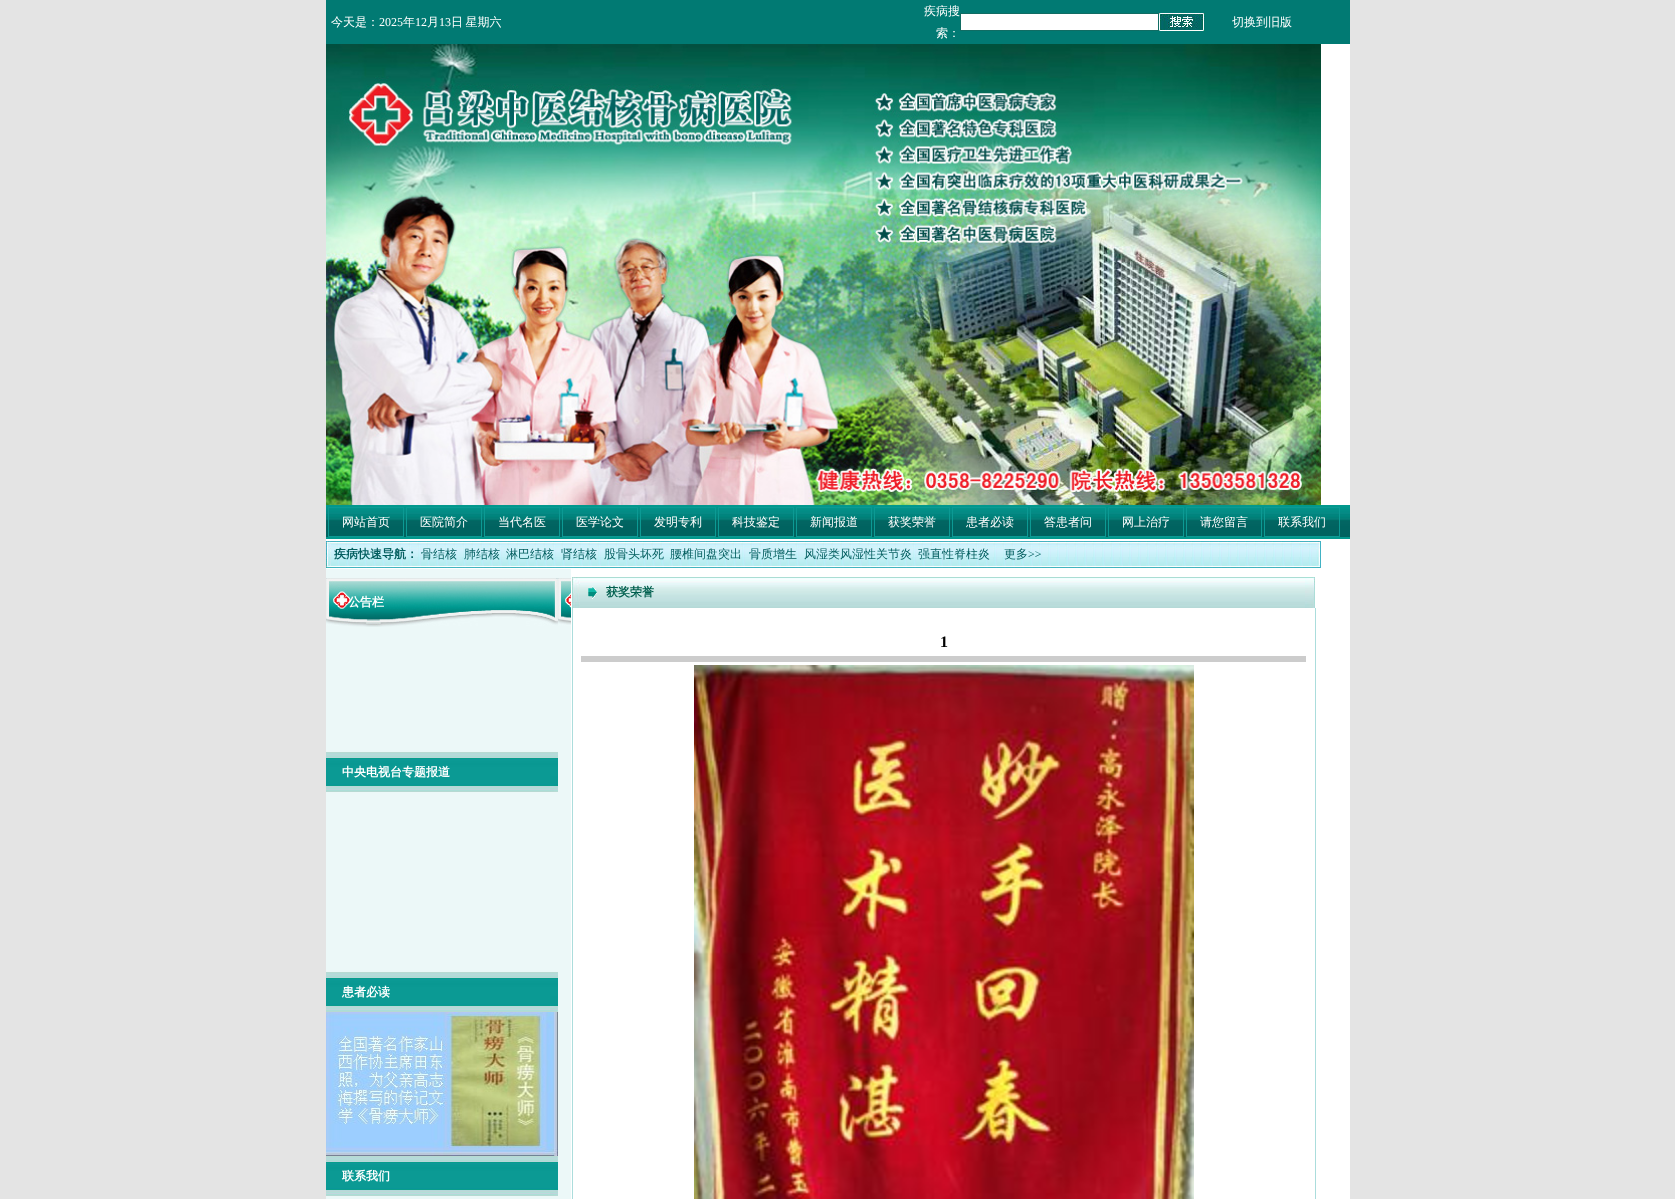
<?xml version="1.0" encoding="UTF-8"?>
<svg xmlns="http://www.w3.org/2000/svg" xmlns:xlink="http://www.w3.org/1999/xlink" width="1675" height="1199">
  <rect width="100%" height="100%" fill="#e4e4e4" />
  <rect x="326" y="44" width="1024" height="1155" fill="#ffffff" />
  <rect x="326" width="1024" height="44" fill="#017a73" />
  <rect x="960.5" y="13.5" width="198" height="17" fill="#ffffff" stroke="#116c63" />
  <image x="1159" y="13" width="46" height="18" xlink:href="image1.png" />
  <image x="326" y="44" width="995" height="461" xlink:href="image2.png" />
  <image x="326" y="505" width="1024" height="34" xlink:href="image3.png" />
  <rect x="328.5" y="507.5" width="75" height="29" fill="none" stroke="#0c9a94" />
  <rect x="406.5" y="507.5" width="75" height="29" fill="none" stroke="#0c9a94" />
  <rect x="484.5" y="507.5" width="75" height="29" fill="none" stroke="#0c9a94" />
  <rect x="562.5" y="507.5" width="75" height="29" fill="none" stroke="#0c9a94" />
  <rect x="640.5" y="507.5" width="75" height="29" fill="none" stroke="#0c9a94" />
  <rect x="718.5" y="507.5" width="75" height="29" fill="none" stroke="#0c9a94" />
  <rect x="796.5" y="507.5" width="75" height="29" fill="none" stroke="#0c9a94" />
  <rect x="874.5" y="507.5" width="75" height="29" fill="none" stroke="#0c9a94" />
  <rect x="952.5" y="507.5" width="75" height="29" fill="none" stroke="#0c9a94" />
  <rect x="1030.5" y="507.5" width="75" height="29" fill="none" stroke="#0c9a94" />
  <rect x="1108.5" y="507.5" width="75" height="29" fill="none" stroke="#0c9a94" />
  <rect x="1186.5" y="507.5" width="75" height="29" fill="none" stroke="#0c9a94" />
  <rect x="1264.5" y="507.5" width="75" height="29" fill="none" stroke="#0c9a94" />
  <image x="326" y="541" width="5" height="27" xlink:href="image4.png" />
  <image x="331" y="541" width="985" height="27" xlink:href="image5.png" />
  <image x="1316" y="541" width="5" height="27" xlink:href="image6.png" />
  <rect x="326" y="569" width="245" height="630" fill="#ecf8f8" />
  <image x="326" y="578" width="245" height="49" xlink:href="image7.png" />
  <image x="326" y="752" width="232" height="40" xlink:href="image8.png" />
  <image x="326" y="972" width="232" height="40" xlink:href="image8.png" />
  <image x="326" y="1012" width="232" height="144" xlink:href="image9.png" />
  <image x="326" y="1156" width="232" height="40" xlink:href="image8.png" />
  <image x="572" y="577" width="13" height="31" xlink:href="image10.png" />
  <image x="585" y="577" width="21" height="31" xlink:href="image11.png" />
  <image x="588" y="586" width="9" height="13" xlink:href="image12.png" />
  <image x="606" y="577" width="699" height="31" xlink:href="image13.png" />
  <image x="1305" y="577" width="10" height="31" xlink:href="image14.png" />
  <rect x="1315" y="608" width="1" height="591" fill="#abdddc" />
  <rect x="572" y="608" width="1" height="591" fill="#abdddc" />
  <rect x="581" y="656" width="725" height="6" fill="#cccccc" />
  <image x="694" y="665" width="500" height="534" xlink:href="image15.png" />
  <text x="331" y="26" style="font-family: WenQuanYi Zen Hei; font-size: 12px; font-weight: 500; fill: #ffffff">今天是：</text>
  <text x="379" y="26" style="font-family: Liberation Serif; font-size: 12px; fill: #ffffff">2025</text>
  <text x="403" y="26" style="font-family: WenQuanYi Zen Hei; font-size: 12px; font-weight: 500; fill: #ffffff">年</text>
  <text x="415" y="26" style="font-family: Liberation Serif; font-size: 12px; fill: #ffffff">12</text>
  <text x="427" y="26" style="font-family: WenQuanYi Zen Hei; font-size: 12px; font-weight: 500; fill: #ffffff">月</text>
  <text x="439" y="26" style="font-family: Liberation Serif; font-size: 12px; fill: #ffffff">13</text>
  <text x="451" y="26" word-spacing="-1" style="font-family: WenQuanYi Zen Hei; font-size: 12px; font-weight: 500; fill: #ffffff">日 星期六</text>
  <text x="924" y="15" style="font-family: WenQuanYi Zen Hei; font-size: 12px; font-weight: 500; fill: #ffffff">疾病搜</text>
  <text x="936" y="37" style="font-family: WenQuanYi Zen Hei; font-size: 12px; font-weight: 500; fill: #ffffff">索：</text>
  <text x="1232" y="26" style="font-family: WenQuanYi Zen Hei; font-size: 12px; font-weight: 500; fill: #ffffff">切换到旧版</text>
  <text x="342" y="526" style="font-family: WenQuanYi Zen Hei; font-size: 12px; font-weight: 500; fill: #ffffff">网站首页</text>
  <text x="420" y="526" style="font-family: WenQuanYi Zen Hei; font-size: 12px; font-weight: 500; fill: #ffffff">医院简介</text>
  <text x="498" y="526" style="font-family: WenQuanYi Zen Hei; font-size: 12px; font-weight: 500; fill: #ffffff">当代名医</text>
  <text x="576" y="526" style="font-family: WenQuanYi Zen Hei; font-size: 12px; font-weight: 500; fill: #ffffff">医学论文</text>
  <text x="654" y="526" style="font-family: WenQuanYi Zen Hei; font-size: 12px; font-weight: 500; fill: #ffffff">发明专利</text>
  <text x="732" y="526" style="font-family: WenQuanYi Zen Hei; font-size: 12px; font-weight: 500; fill: #ffffff">科技鉴定</text>
  <text x="810" y="526" style="font-family: WenQuanYi Zen Hei; font-size: 12px; font-weight: 500; fill: #ffffff">新闻报道</text>
  <text x="888" y="526" style="font-family: WenQuanYi Zen Hei; font-size: 12px; font-weight: 500; fill: #ffffff">获奖荣誉</text>
  <text x="966" y="526" style="font-family: WenQuanYi Zen Hei; font-size: 12px; font-weight: 500; fill: #ffffff">患者必读</text>
  <text x="1044" y="526" style="font-family: WenQuanYi Zen Hei; font-size: 12px; font-weight: 500; fill: #ffffff">答患者问</text>
  <text x="1122" y="526" style="font-family: WenQuanYi Zen Hei; font-size: 12px; font-weight: 500; fill: #ffffff">网上治疗</text>
  <text x="1200" y="526" style="font-family: WenQuanYi Zen Hei; font-size: 12px; font-weight: 500; fill: #ffffff">请您留言</text>
  <text x="1278" y="526" style="font-family: WenQuanYi Zen Hei; font-size: 12px; font-weight: 500; fill: #ffffff">联系我们</text>
  <text x="334" y="558" style="font-family: WenQuanYi Zen Hei; font-size: 12px; font-weight: bold; fill: #035e5f">疾病快速导航：</text>
  <text x="421" y="558" style="font-family: WenQuanYi Zen Hei; font-size: 12px; font-weight: 500; fill: #035e5f">骨结核</text>
  <text x="464" y="558" style="font-family: WenQuanYi Zen Hei; font-size: 12px; font-weight: 500; fill: #035e5f">肺结核</text>
  <text x="506" y="558" style="font-family: WenQuanYi Zen Hei; font-size: 12px; font-weight: 500; fill: #035e5f">淋巴结核</text>
  <text x="561" y="558" style="font-family: WenQuanYi Zen Hei; font-size: 12px; font-weight: 500; fill: #035e5f">肾结核</text>
  <text x="604" y="558" style="font-family: WenQuanYi Zen Hei; font-size: 12px; font-weight: 500; fill: #035e5f">股骨头坏死</text>
  <text x="670" y="558" style="font-family: WenQuanYi Zen Hei; font-size: 12px; font-weight: 500; fill: #035e5f">腰椎间盘突出</text>
  <text x="749" y="558" style="font-family: WenQuanYi Zen Hei; font-size: 12px; font-weight: 500; fill: #035e5f">骨质增生</text>
  <text x="804" y="558" style="font-family: WenQuanYi Zen Hei; font-size: 12px; font-weight: 500; fill: #035e5f">风湿类风湿性关节炎</text>
  <text x="918" y="558" style="font-family: WenQuanYi Zen Hei; font-size: 12px; font-weight: 500; fill: #035e5f">强直性脊柱炎</text>
  <text x="1004" y="558" style="font-family: WenQuanYi Zen Hei; font-size: 12px; font-weight: 500; fill: #035e5f">更多</text>
  <text x="1028" y="558" style="font-family: Liberation Serif; font-size: 12px; fill: #035e5f">&gt;&gt;</text>
  <text x="348" y="606" style="font-family: WenQuanYi Zen Hei; font-size: 12px; font-weight: bold; fill: #ffffff">公告栏</text>
  <text x="342" y="776" style="font-family: WenQuanYi Zen Hei; font-size: 12px; font-weight: bold; fill: #ffffff">中央电视台专题报道</text>
  <text x="342" y="996" style="font-family: WenQuanYi Zen Hei; font-size: 12px; font-weight: bold; fill: #ffffff">患者必读</text>
  <text x="342" y="1180" style="font-family: WenQuanYi Zen Hei; font-size: 12px; font-weight: bold; fill: #ffffff">联系我们</text>
  <text x="606" y="596" style="font-family: WenQuanYi Zen Hei; font-size: 12px; font-weight: bold; fill: #005f4e">获奖荣誉</text>
  <text x="940" y="647" style="font-family: Liberation Serif; font-size: 16px; font-weight: bold; fill: #000000">1</text>
</svg>
